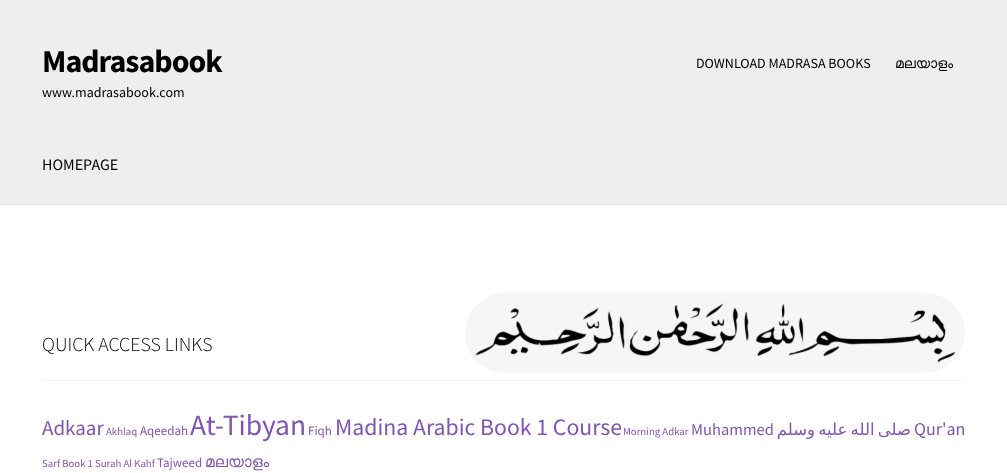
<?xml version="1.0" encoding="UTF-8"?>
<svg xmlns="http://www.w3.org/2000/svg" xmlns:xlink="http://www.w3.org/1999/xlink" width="1007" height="473">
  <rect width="100%" height="100%" fill="#ffffff" />
  <rect width="1007" height="204" fill="#eeeeee" />
  <rect y="204" width="1007" height="1" fill="#dfdfdf" />
  <image x="465" y="293" width="500" height="80" xlink:href="image1.png" />
  <rect x="42" y="380" width="923" height="1" fill="#f2f2f2" />
  <text x="42" y="72" style="font-family: Source Sans Pro; font-size: 32px; font-weight: bold; letter-spacing: -1px; fill: #000000">Madrasabook</text>
  <text x="42" y="97" style="font-family: Source Sans Pro; font-size: 14px; fill: #000000">www.madrasabook.com</text>
  <text x="696" y="68" style="font-family: Source Sans Pro; font-size: 14px; fill: #000000">DOWNLOAD MADRASA BOOKS</text>
  <text x="895" y="68" style="font-family: FreeSans; font-size: 14px; fill: #000000">മലയാളം</text>
  <text x="42" y="170" style="font-family: Source Sans Pro; font-size: 16px; fill: #000000">HOMEPAGE</text>
  <text x="42" y="351" style="font-family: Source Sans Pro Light; font-size: 19.75px; font-weight: 300; fill: #000000">QUICK ACCESS LINKS</text>
  <text x="42" y="435" style="font-family: Source Sans Pro; font-size: 21px; fill: #7f54b3">Adkaar</text>
  <text x="106" y="435" style="font-family: Source Sans Pro; font-size: 10.75px; fill: #7f54b3">Akhlaq</text>
  <text x="140" y="435" style="font-family: Source Sans Pro; font-size: 13px; fill: #7f54b3">Aqeedah</text>
  <text x="190" y="435" style="font-family: Source Sans Pro; font-size: 29.5px; fill: #7f54b3">At-Tibyan</text>
  <text x="308" y="435" style="font-family: Source Sans Pro; font-size: 13px; fill: #7f54b3">Fiqh</text>
  <text x="335" y="435" style="font-family: Source Sans Pro; font-size: 23.75px; fill: #7f54b3">Madina Arabic Book 1 Course</text>
  <text x="623" y="435" style="font-family: Source Sans Pro; font-size: 10.75px; fill: #7f54b3">Morning Adkar</text>
  <text x="691" y="435" style="font-family: Source Sans Pro; font-size: 16.5px; fill: #7f54b3">Muhammed</text>
  <text x="911" y="435" word-spacing="-2" style="font-family: DejaVu Sans; font-size: 16.5px; direction: rtl; fill: #7f54b3">صلى الله عليه وسلم</text>
  <text x="914" y="435" style="font-family: Source Sans Pro; font-size: 18px; fill: #7f54b3">Qur'an</text>
  <text x="42" y="467" style="font-family: Source Sans Pro; font-size: 10.75px; fill: #7f54b3">Sarf Book 1</text>
  <text x="95" y="467" style="font-family: Source Sans Pro; font-size: 10.75px; fill: #7f54b3">Surah Al Kahf</text>
  <text x="157" y="467" style="font-family: Source Sans Pro; font-size: 13px; fill: #7f54b3">Tajweed</text>
  <text x="205" y="467" style="font-family: FreeSans; font-size: 15.5px; fill: #7f54b3">മലയാളം</text>
</svg>
